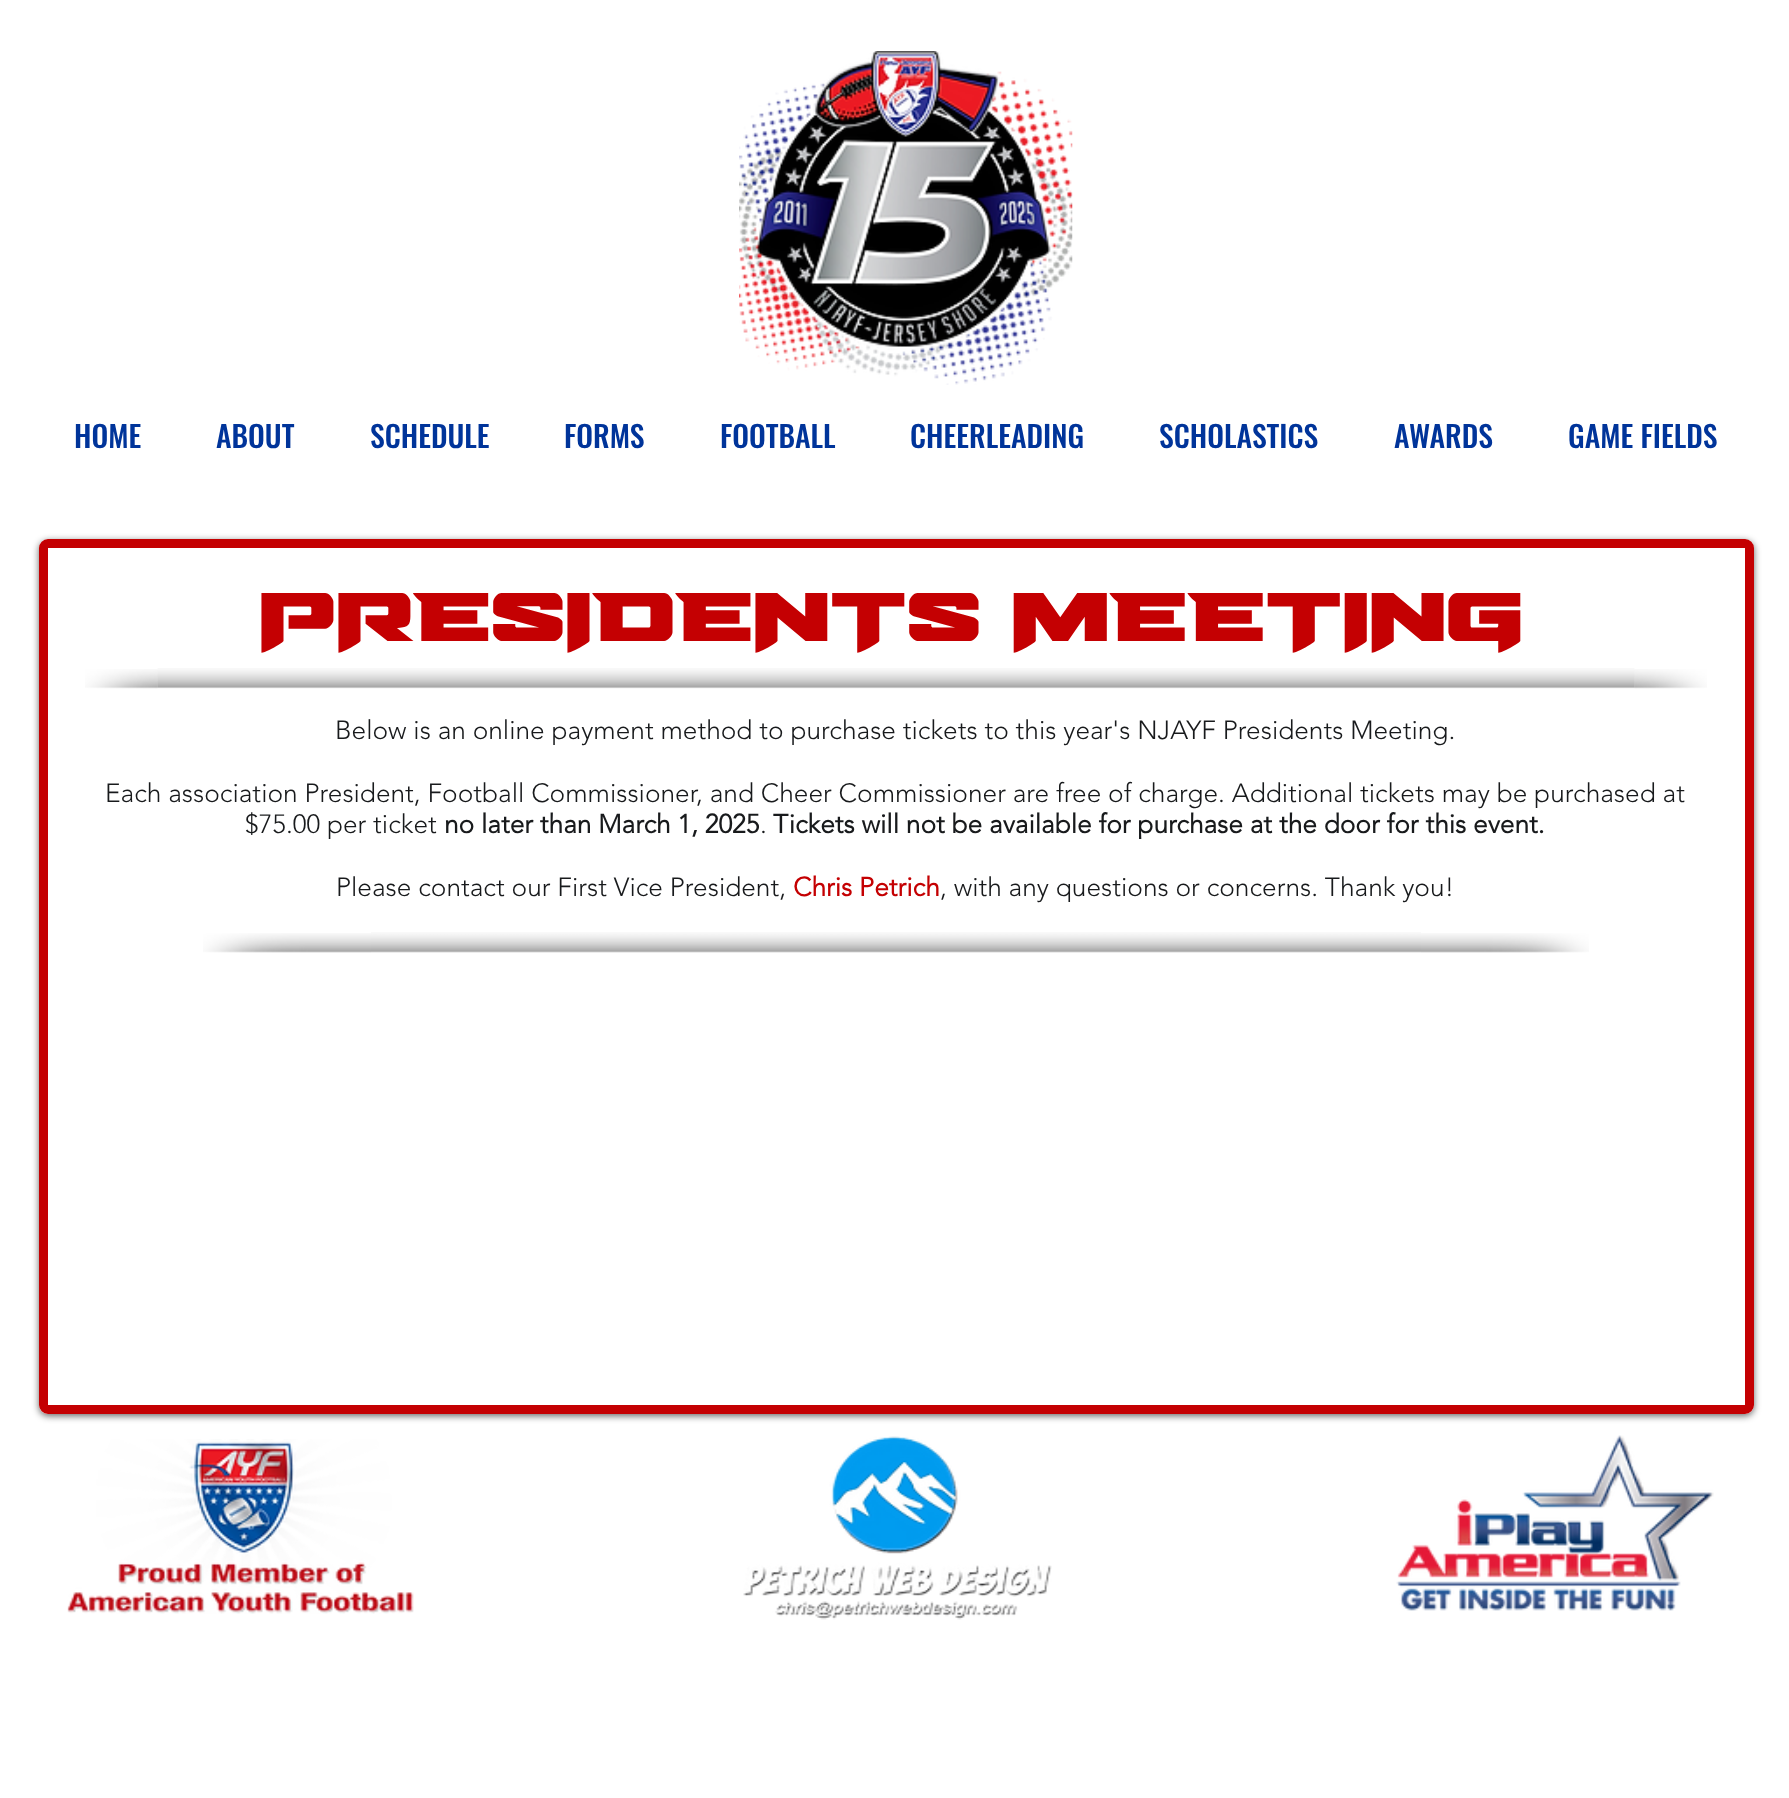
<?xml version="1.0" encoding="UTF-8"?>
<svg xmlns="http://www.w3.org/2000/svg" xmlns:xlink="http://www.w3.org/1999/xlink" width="1789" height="1798">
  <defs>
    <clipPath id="clip1"><path d="M 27 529 h 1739 v 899 h -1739 z m 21 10 h 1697 c 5 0 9 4 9 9 v 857 c 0 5 -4 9 -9 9 h -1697 c -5 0 -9 -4 -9 -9 v -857 c 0 -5 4 -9 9 -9 z" clip-rule="evenodd" /></clipPath>
  </defs>
  <rect width="100%" height="100%" fill="#ffffff" />
  <image x="739" y="51" width="334" height="334" xlink:href="image1.png" />
  <g clip-path="url(#clip1)">
    <rect x="39" y="541" width="1715" height="875" rx="9" fill="#000000" fill-opacity="0.6" filter="blur(3.5px)" />
  </g>
  <rect x="43.5" y="543.5" width="1706" height="866" rx="4.5" fill="#ffffff" fill-opacity="0.8" stroke="#c40002" stroke-width="9" />
  <image x="157" y="668" width="1478" height="21" xlink:href="image2.png" />
  <image x="85" y="669" width="73" height="20" xlink:href="image3.png" />
  <image x="1634" y="669" width="73" height="20" xlink:href="image4.png" />
  <image x="203" y="933" width="168" height="20" xlink:href="image5.png" />
  <image x="371" y="932" width="1050" height="21" xlink:href="image6.png" />
  <image x="1421" y="933" width="168" height="20" xlink:href="image7.png" />
  <image x="67" y="1439" width="347" height="175" xlink:href="image8.png" />
  <image x="743" y="1436" width="309" height="184" xlink:href="image9.png" />
  <image x="1396" y="1435" width="318" height="176" xlink:href="image10.png" />
  <text x="74" y="448" style="font-family: Oswald; font-size: 29.75px; font-weight: 500; fill: #00349a">HOME</text>
  <text x="216" y="448" style="font-family: Oswald; font-size: 29.75px; font-weight: 500; fill: #00349a">ABOUT</text>
  <text x="370" y="448" style="font-family: Oswald; font-size: 29.75px; font-weight: 500; fill: #00349a">SCHEDULE</text>
  <text x="564" y="448" style="font-family: Oswald; font-size: 29.75px; font-weight: 500; fill: #00349a">FORMS</text>
  <text x="720" y="448" style="font-family: Oswald; font-size: 29.75px; font-weight: 500; fill: #00349a">FOOTBALL</text>
  <text x="910" y="448" style="font-family: Oswald; font-size: 29.75px; font-weight: 500; fill: #00349a">CHEERLEADING</text>
  <text x="1159" y="448" style="font-family: Oswald; font-size: 29.75px; font-weight: 500; fill: #00349a">SCHOLASTICS</text>
  <text x="1394" y="448" style="font-family: Oswald; font-size: 29.75px; font-weight: 500; fill: #00349a">AWARDS</text>
  <text x="1568" y="448" style="font-family: Oswald; font-size: 29.75px; font-weight: 500; fill: #00349a">GAME FIELDS</text>
  <text x="259" y="641" style="font-family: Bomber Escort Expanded; font-size: 87.5px; fill: #c40002">PRESIDENTS MEETING</text>
  <text x="335" y="739" style="font-family: 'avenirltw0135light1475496'; font-size: 26.25px; font-weight: 300; fill: #181a1c">Below is an online payment method to purchase tickets to this year's NJAYF Presidents Meeting.</text>
  <text x="105" y="802" style="font-family: 'avenirltw0135light1475496'; font-size: 26.25px; font-weight: 300; fill: #181a1c">Each association President, Football Commissioner, and Cheer Commissioner are free of charge. Additional tickets may be purchased at</text>
  <text x="245" y="833" style="font-family: 'avenirltw0135light1475496'; font-size: 26.25px; font-weight: 300; fill: #181a1c">$75.00 per ticket</text>
  <text x="444" y="833" style="font-family: 'avenirltw0135light1475496'; font-size: 26.25px; font-weight: bold; fill: #181a1c">no later than March 1, 2025</text>
  <text x="760" y="833" style="font-family: 'avenirltw0135light1475496'; font-size: 26.25px; font-weight: 300; fill: #181a1c">.</text>
  <text x="773" y="833" style="font-family: 'avenirltw0135light1475496'; font-size: 26.25px; font-weight: bold; fill: #181a1c">Tickets will not be available for purchase at the door for this event.</text>
  <text x="336" y="896" style="font-family: 'avenirltw0135light1475496'; font-size: 26.25px; font-weight: 300; fill: #181a1c">Please contact our First Vice President,</text>
  <text x="793" y="896" style="font-family: 'avenirltw0135light1475496'; font-size: 26.25px; font-weight: bold; fill: #c40002">Chris Petrich</text>
  <text x="940" y="896" style="font-family: 'avenirltw0135light1475496'; font-size: 26.25px; font-weight: 300; fill: #181a1c">, with any questions or concerns. Thank you!</text>
</svg>
